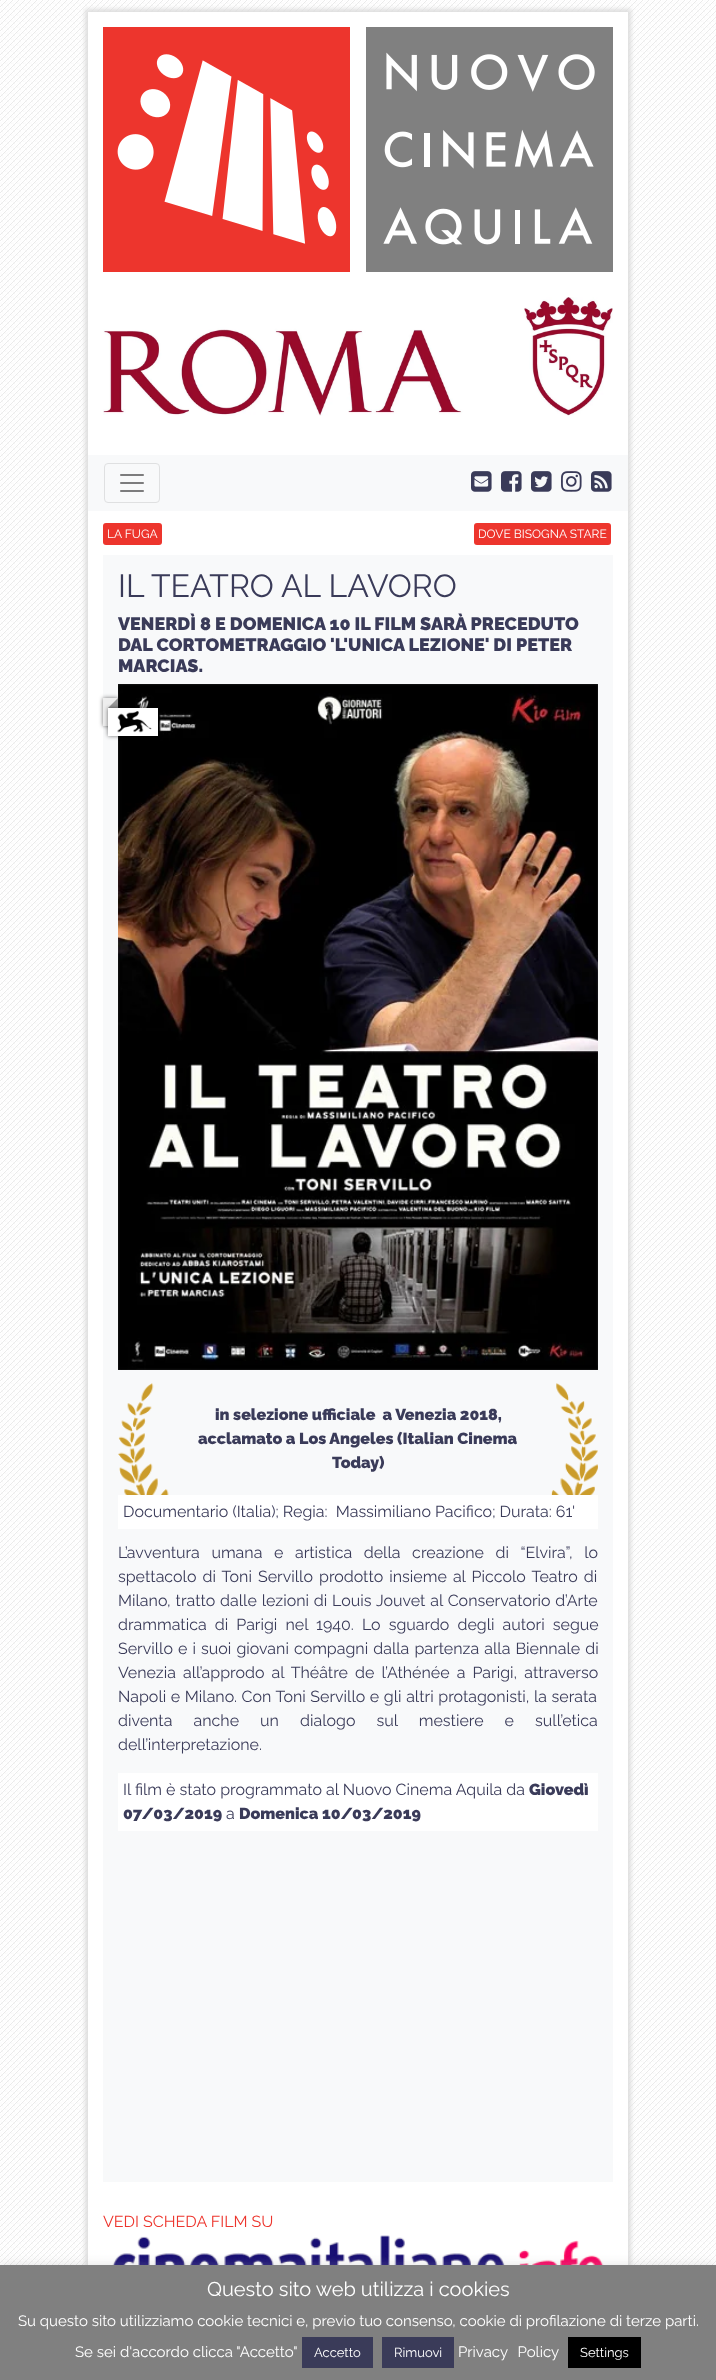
<?xml version="1.0" encoding="UTF-8"?>
<svg xmlns="http://www.w3.org/2000/svg" xmlns:xlink="http://www.w3.org/1999/xlink" width="716" height="2380">
  <rect width="100%" height="100%" fill="#ffffff" />
  <image x="0" y="0" width="716" height="2265" xlink:href="image1.png" />
  <rect x="85" y="9" width="546" height="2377" fill="#dedede" filter="blur(2px)" />
  <rect x="88" y="12" width="540" height="2253" fill="#ffffff" />
  <image x="103" y="27" width="510" height="245" xlink:href="image2.png" />
  <image x="103" y="297" width="510" height="119" xlink:href="image3.png" />
  <rect x="88" y="455" width="540" height="56" fill="#f8f9fa" />
  <rect x="104.5" y="463.5" width="55" height="39" rx="3.5" fill="none" stroke="#dfe0e1" />
  <image x="120" y="474" width="24" height="18" xlink:href="image4.png" />
  <image x="471" y="471" width="21" height="21" xlink:href="image5.png" />
  <image x="501" y="471" width="21" height="21" xlink:href="image6.png" />
  <image x="531" y="471" width="21" height="21" xlink:href="image7.png" />
  <image x="561" y="471" width="21" height="21" xlink:href="image8.png" />
  <image x="591" y="471" width="21" height="21" xlink:href="image9.png" />
  <rect x="103" y="523" width="59" height="22" rx="3" fill="#ed352d" />
  <rect x="474" y="523" width="137" height="22" rx="3" fill="#ed352d" />
  <rect x="103" y="555" width="510" height="1627" fill="#f8f9fa" />
  <image x="118" y="684" width="480" height="686" xlink:href="image10.png" />
  <rect x="103" y="698" width="15" height="28" fill="#000000" fill-opacity="0.55" filter="blur(2px)" />
  <rect x="103" y="698" width="15" height="28" fill="#eeeeee" />
  <path d="M 118 698 v 10 h -10 z" fill="#999999" />
  <rect x="108" y="708" width="50" height="28" fill="#000000" fill-opacity="0.55" filter="blur(2px)" />
  <rect x="108" y="708" width="50" height="28" fill="#ffffff" />
  <image x="117" y="711" width="35" height="22" xlink:href="image11.png" />
  <image x="118" y="1383" width="480" height="112" xlink:href="image12.png" />
  <rect x="118" y="1495" width="480" height="34" fill="#ffffff" />
  <rect x="118" y="1773" width="480" height="58" fill="#ffffff" />
  <image x="111" y="2235" width="494" height="30" xlink:href="image13.png" />
  <rect y="2264" width="716" height="115" fill="#acabab" fill-opacity="0.3" filter="blur(5px)" />
  <rect y="2265" width="716" height="115" fill="#808080" />
  <rect x="302" y="2337" width="71" height="31" fill="#3a3b59" />
  <rect x="382" y="2337" width="72" height="31" fill="#3a3b59" />
  <rect x="568" y="2337" width="73" height="31" fill="#000000" />
  <text x="107" y="538" style="font-family: Raleway; font-size: 12px; fill: #ffffff">LA FUGA</text>
  <text x="478" y="538" style="font-family: Raleway; font-size: 12px; fill: #ffffff">DOVE BISOGNA STARE</text>
  <text x="118" y="597" style="font-family: Raleway; font-size: 32px; fill: #3a3b59">IL TEATRO AL LAVORO</text>
  <text x="118" y="630" style="font-family: Raleway; font-size: 18px; font-weight: 900; fill: #3a3b59">VENERDÌ 8 E DOMENICA 10 IL FILM SARÀ PRECEDUTO</text>
  <text x="118" y="651" style="font-family: Raleway; font-size: 18px; font-weight: 900; fill: #3a3b59">DAL CORTOMETRAGGIO 'L'UNICA LEZIONE' DI PETER</text>
  <text x="118" y="672" style="font-family: Raleway; font-size: 18px; font-weight: 900; fill: #3a3b59">MARCIAS.</text>
  <text x="215" y="1420" style="font-family: Raleway; font-size: 16px; font-weight: 900; fill: #3a3b59" xml:space="preserve">in selezione ufficiale  a Venezia 2018,</text>
  <text x="198" y="1444" style="font-family: Raleway; font-size: 16px; font-weight: 900; fill: #3a3b59">acclamato a Los Angeles (Italian Cinema</text>
  <text x="332" y="1468" style="font-family: Raleway; font-size: 16px; font-weight: 900; fill: #3a3b59">Today)</text>
  <text x="123" y="1517" style="font-family: Raleway; font-size: 16px; fill: #3a3b59" xml:space="preserve">Documentario (Italia); Regia:  Massimiliano Pacifico; Durata: 61'</text>
  <text x="118" y="1558" word-spacing="7.5" style="font-family: Raleway; font-size: 16px; fill: #3a3b59">L’avventura umana e artistica della creazione di “Elvira”, lo</text>
  <text x="118" y="1582" word-spacing="2" style="font-family: Raleway; font-size: 16px; fill: #3a3b59">spettacolo di Toni Servillo prodotto insieme al Piccolo Teatro di</text>
  <text x="118" y="1606" word-spacing="0.75" style="font-family: Raleway; font-size: 16px; fill: #3a3b59">Milano, tratto dalle lezioni di Louis Jouvet al Conservatorio d’Arte</text>
  <text x="118" y="1630" word-spacing="4" style="font-family: Raleway; font-size: 16px; fill: #3a3b59">drammatica di Parigi nel 1940. Lo sguardo degli autori segue</text>
  <text x="118" y="1654" word-spacing="1" style="font-family: Raleway; font-size: 16px; fill: #3a3b59">Servillo e i suoi giovani compagni dalla partenza alla Biennale di</text>
  <text x="118" y="1678" word-spacing="3" style="font-family: Raleway; font-size: 16px; fill: #3a3b59">Venezia all’approdo al Théâtre de l’Athénée a Parigi, attraverso</text>
  <text x="118" y="1702" word-spacing="0.5" style="font-family: Raleway; font-size: 16px; fill: #3a3b59">Napoli e Milano. Con Toni Servillo e gli altri protagonisti, la serata</text>
  <text x="118" y="1726" word-spacing="17" style="font-family: Raleway; font-size: 16px; fill: #3a3b59">diventa anche un dialogo sul mestiere e sull’etica</text>
  <text x="118" y="1750" style="font-family: Raleway; font-size: 16px; fill: #3a3b59">dell’interpretazione.</text>
  <text x="123" y="1795" style="font-family: Raleway; font-size: 16px; fill: #3a3b59">Il film è stato programmato al Nuovo Cinema Aquila da</text>
  <text x="529" y="1795" style="font-family: Raleway; font-size: 16px; font-weight: 900; fill: #3a3b59">Giovedì</text>
  <text x="123" y="1819" style="font-family: Raleway; font-size: 16px; font-weight: 900; fill: #3a3b59">07/03/2019</text>
  <text x="226" y="1819" style="font-family: Raleway; font-size: 16px; fill: #3a3b59">a</text>
  <text x="239" y="1819" style="font-family: Raleway; font-size: 16px; font-weight: 900; fill: #3a3b59">Domenica 10/03/2019</text>
  <text x="103" y="2227" style="font-family: Raleway; font-size: 16px; fill: #ed352d">VEDI SCHEDA FILM SU</text>
  <text x="207" y="2296" style="font-family: Raleway; font-size: 20px; fill: #ffffff">Questo sito web utilizza i cookies</text>
  <text x="18" y="2326" style="font-family: Raleway; font-size: 15px; fill: #ffffff">Su questo sito utilizziamo cookie tecnici e, previo tuo consenso, cookie di profilazione di terze parti.</text>
  <text x="75" y="2357" style="font-family: Raleway; font-size: 15px; fill: #ffffff">Se sei d'accordo clicca "Accetto"</text>
  <text x="314" y="2357" style="font-family: Raleway; font-size: 13px; fill: #ffffff">Accetto</text>
  <text x="394" y="2357" style="font-family: Raleway; font-size: 13px; fill: #ffffff">Rimuovi</text>
  <text x="458" y="2357" word-spacing="6" style="font-family: Raleway; font-size: 15px; fill: #ffffff">Privacy Policy</text>
  <text x="580" y="2357" style="font-family: Raleway; font-size: 13px; fill: #ffffff">Settings</text>
</svg>
